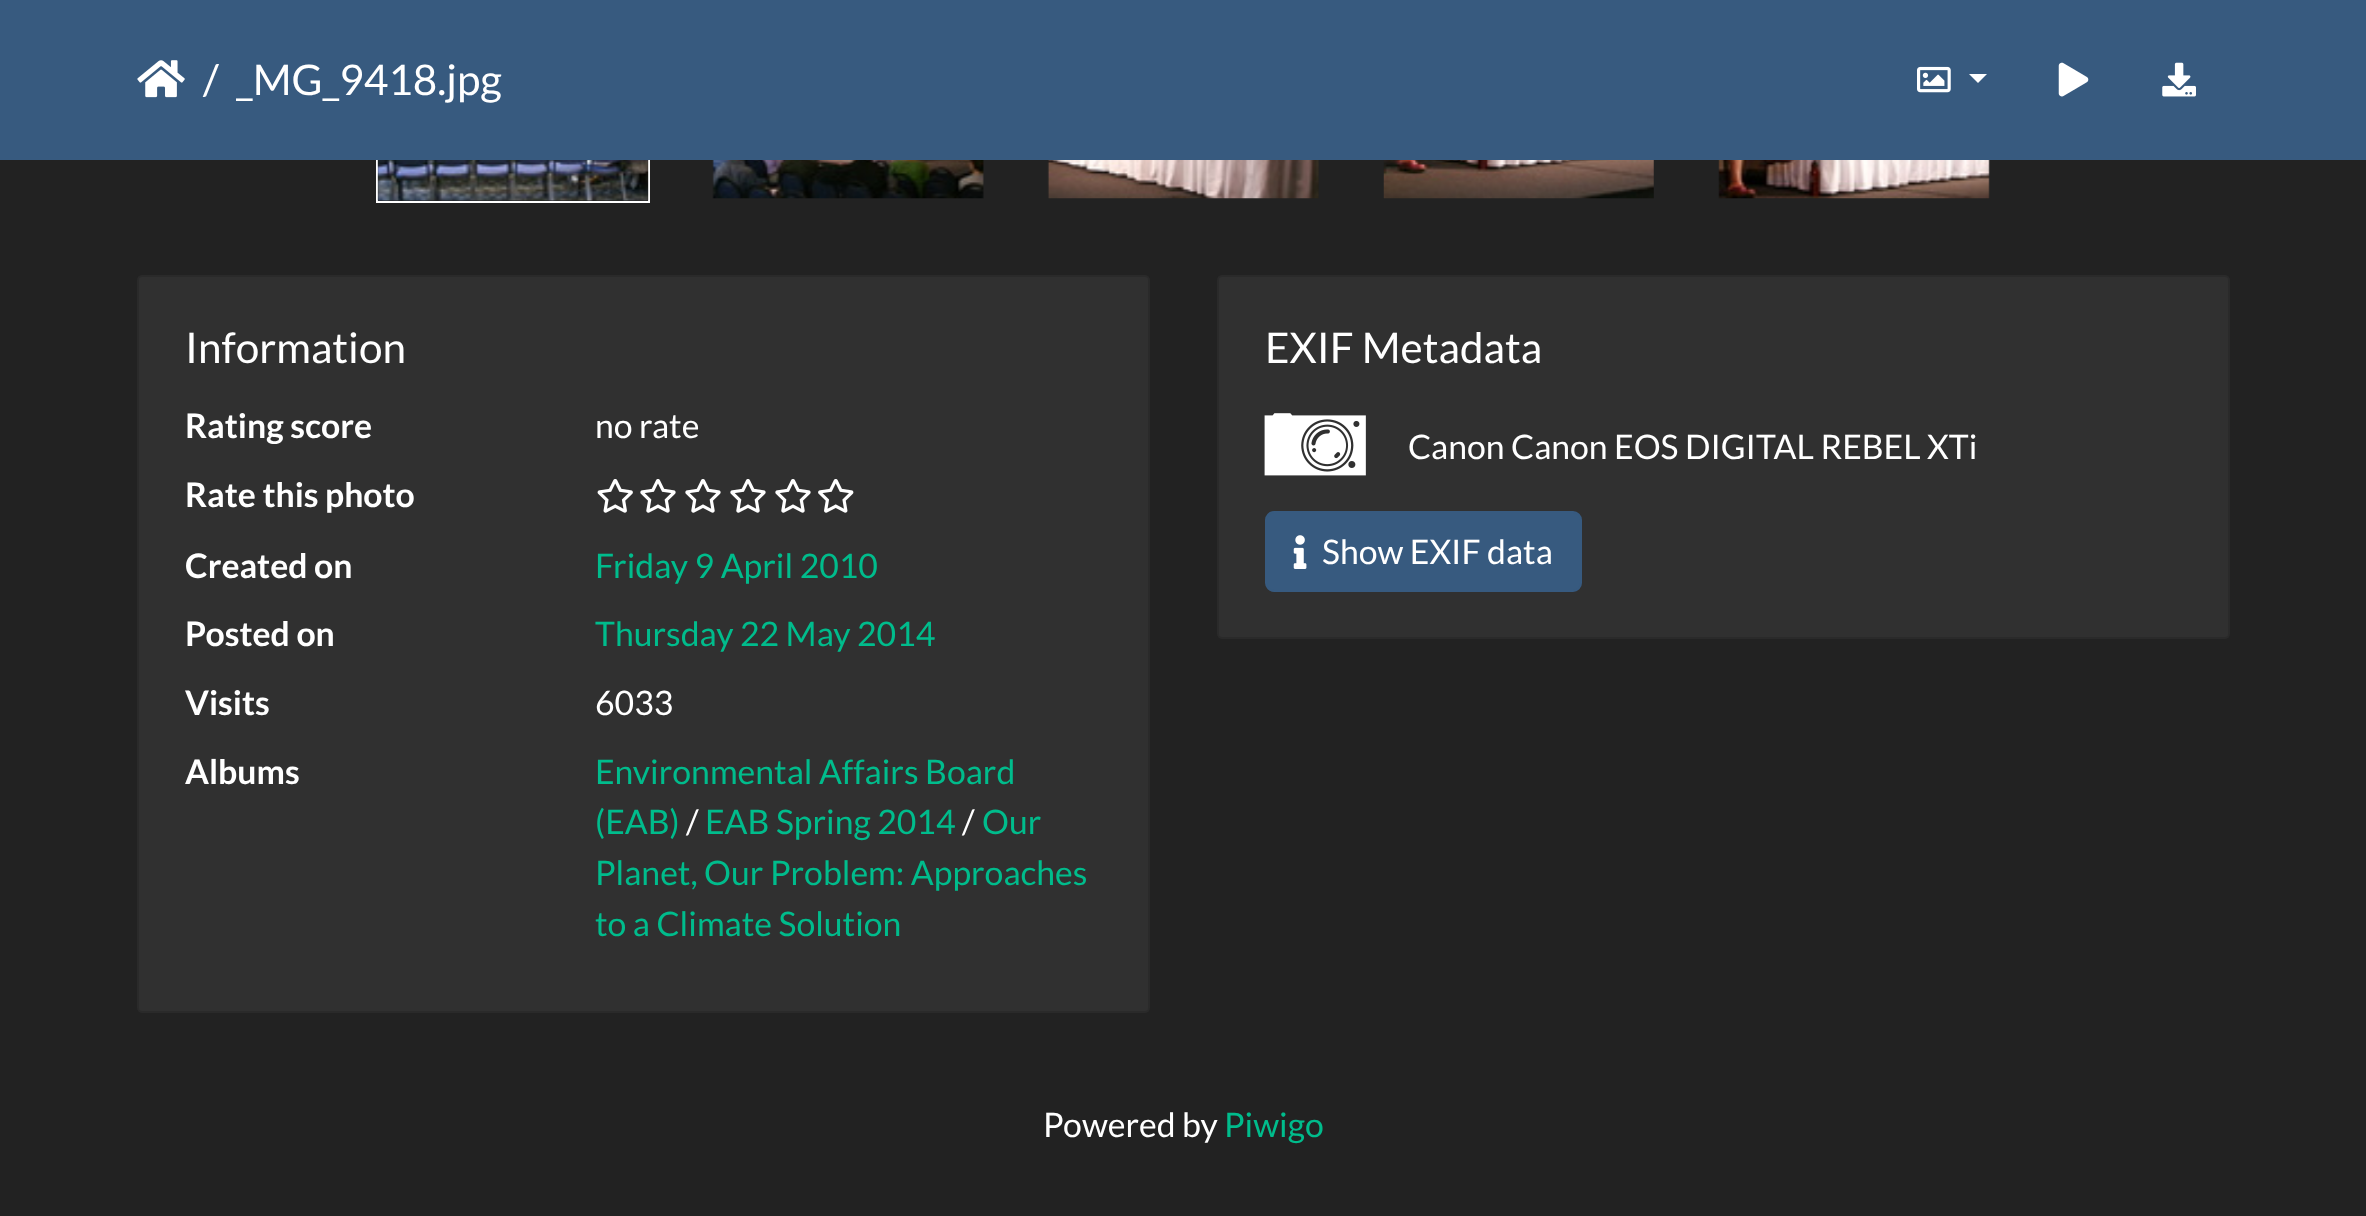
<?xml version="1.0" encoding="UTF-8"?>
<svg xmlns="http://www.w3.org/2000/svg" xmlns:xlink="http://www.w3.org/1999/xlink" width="2366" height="1216">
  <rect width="100%" height="100%" fill="#222222" />
  <rect x="377" y="-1" width="272" height="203" fill="none" stroke="#ffffff" stroke-width="2" />
  <rect width="2366" height="160" fill="#375a7f" />
  <image x="137" y="60" width="48" height="38" xlink:href="image1.png" />
  <image x="1917" y="66" width="34" height="27" xlink:href="image2.png" />
  <path d="M 1969 74 h 18 l -9 9 z" fill="#ffffff" />
  <image x="2058" y="62" width="31" height="35" xlink:href="image3.png" />
  <image x="2162" y="62" width="34" height="35" xlink:href="image4.png" />
  <image x="377" y="160" width="272" height="41" xlink:href="image5.png" />
  <image x="712" y="160" width="272" height="39" xlink:href="image6.png" />
  <image x="1047" y="160" width="272" height="39" xlink:href="image7.png" />
  <image x="1383" y="160" width="271" height="39" xlink:href="image8.png" />
  <image x="1718" y="160" width="272" height="39" xlink:href="image9.png" />
  <rect x="137" y="275" width="1013" height="738" rx="5" fill="#303030" />
  <rect x="138" y="276" width="1011" height="736" rx="4" fill="none" stroke="#000000" stroke-opacity="0.12" stroke-width="2" />
  <image x="597" y="479" width="36" height="34" xlink:href="image10.png" />
  <image x="640" y="479" width="36" height="34" xlink:href="image11.png" />
  <image x="685" y="479" width="36" height="34" xlink:href="image11.png" />
  <image x="730" y="479" width="36" height="34" xlink:href="image11.png" />
  <image x="775" y="479" width="36" height="34" xlink:href="image11.png" />
  <image x="818" y="479" width="36" height="34" xlink:href="image12.png" />
  <rect x="1217" y="275" width="1013" height="364" rx="5" fill="#303030" />
  <rect x="1218" y="276" width="1011" height="362" rx="4" fill="none" stroke="#000000" stroke-opacity="0.12" stroke-width="2" />
  <image x="1264" y="413" width="102" height="63" xlink:href="image13.png" />
  <rect x="1266" y="512" width="315" height="79" rx="8" fill="#375a7f" stroke="#375a7f" stroke-width="2" />
  <image x="1293" y="535" width="14" height="34" xlink:href="image14.png" />
  <text x="203" y="95" style="font-family: Lato; font-size: 42.25px; fill: #ffffff">/</text>
  <text x="236" y="95" style="font-family: Lato; font-size: 42.25px; fill: #ffffff">_MG_9418.jpg</text>
  <text x="185" y="363" style="font-family: Lato; font-size: 42.25px; fill: #ffffff">Information</text>
  <text x="185" y="438" style="font-family: Lato; font-size: 33.75px; font-weight: bold; fill: #ffffff">Rating score</text>
  <text x="595" y="438" style="font-family: Lato; font-size: 33.75px; fill: #ffffff">no rate</text>
  <text x="185" y="507" style="font-family: Lato; font-size: 33.75px; font-weight: bold; fill: #ffffff">Rate this photo</text>
  <text x="185" y="578" style="font-family: Lato; font-size: 33.75px; font-weight: bold; fill: #ffffff">Created on</text>
  <text x="595" y="578" style="font-family: Lato; font-size: 33.75px; fill: #00bc8c">Friday 9 April 2010</text>
  <text x="185" y="646" style="font-family: Lato; font-size: 33.75px; font-weight: bold; fill: #ffffff">Posted on</text>
  <text x="595" y="646" style="font-family: Lato; font-size: 33.75px; fill: #00bc8c">Thursday 22 May 2014</text>
  <text x="185" y="715" style="font-family: Lato; font-size: 33.75px; font-weight: bold; fill: #ffffff">Visits</text>
  <text x="595" y="715" style="font-family: Lato; font-size: 33.75px; fill: #ffffff">6033</text>
  <text x="185" y="784" style="font-family: Lato; font-size: 33.75px; font-weight: bold; fill: #ffffff">Albums</text>
  <text x="595" y="784" style="font-family: Lato; font-size: 33.75px; fill: #00bc8c">Environmental Affairs Board</text>
  <text x="595" y="834" style="font-family: Lato; font-size: 33.75px; fill: #00bc8c">(EAB)</text>
  <text x="686" y="834" style="font-family: Lato; font-size: 33.75px; fill: #ffffff">/</text>
  <text x="705" y="834" style="font-family: Lato; font-size: 33.75px; fill: #00bc8c">EAB Spring 2014</text>
  <text x="962" y="834" style="font-family: Lato; font-size: 33.75px; fill: #ffffff">/</text>
  <text x="982" y="834" style="font-family: Lato; font-size: 33.75px; fill: #00bc8c">Our</text>
  <text x="595" y="885" style="font-family: Lato; font-size: 33.75px; fill: #00bc8c">Planet, Our Problem: Approaches</text>
  <text x="595" y="936" style="font-family: Lato; font-size: 33.75px; fill: #00bc8c">to a Climate Solution</text>
  <text x="1265" y="363" style="font-family: Lato; font-size: 42.25px; fill: #ffffff">EXIF Metadata</text>
  <text x="1408" y="459" style="font-family: Lato; font-size: 33.75px; fill: #ffffff">Canon Canon EOS DIGITAL REBEL XTi</text>
  <text x="1322" y="564" style="font-family: Lato; font-size: 33.75px; fill: #ffffff">Show EXIF data</text>
  <text x="1043" y="1137" style="font-family: Lato; font-size: 33.75px; fill: #ffffff">Powered by</text>
  <text x="1224" y="1137" style="font-family: Lato; font-size: 33.75px; fill: #00bc8c">Piwigo</text>
</svg>
